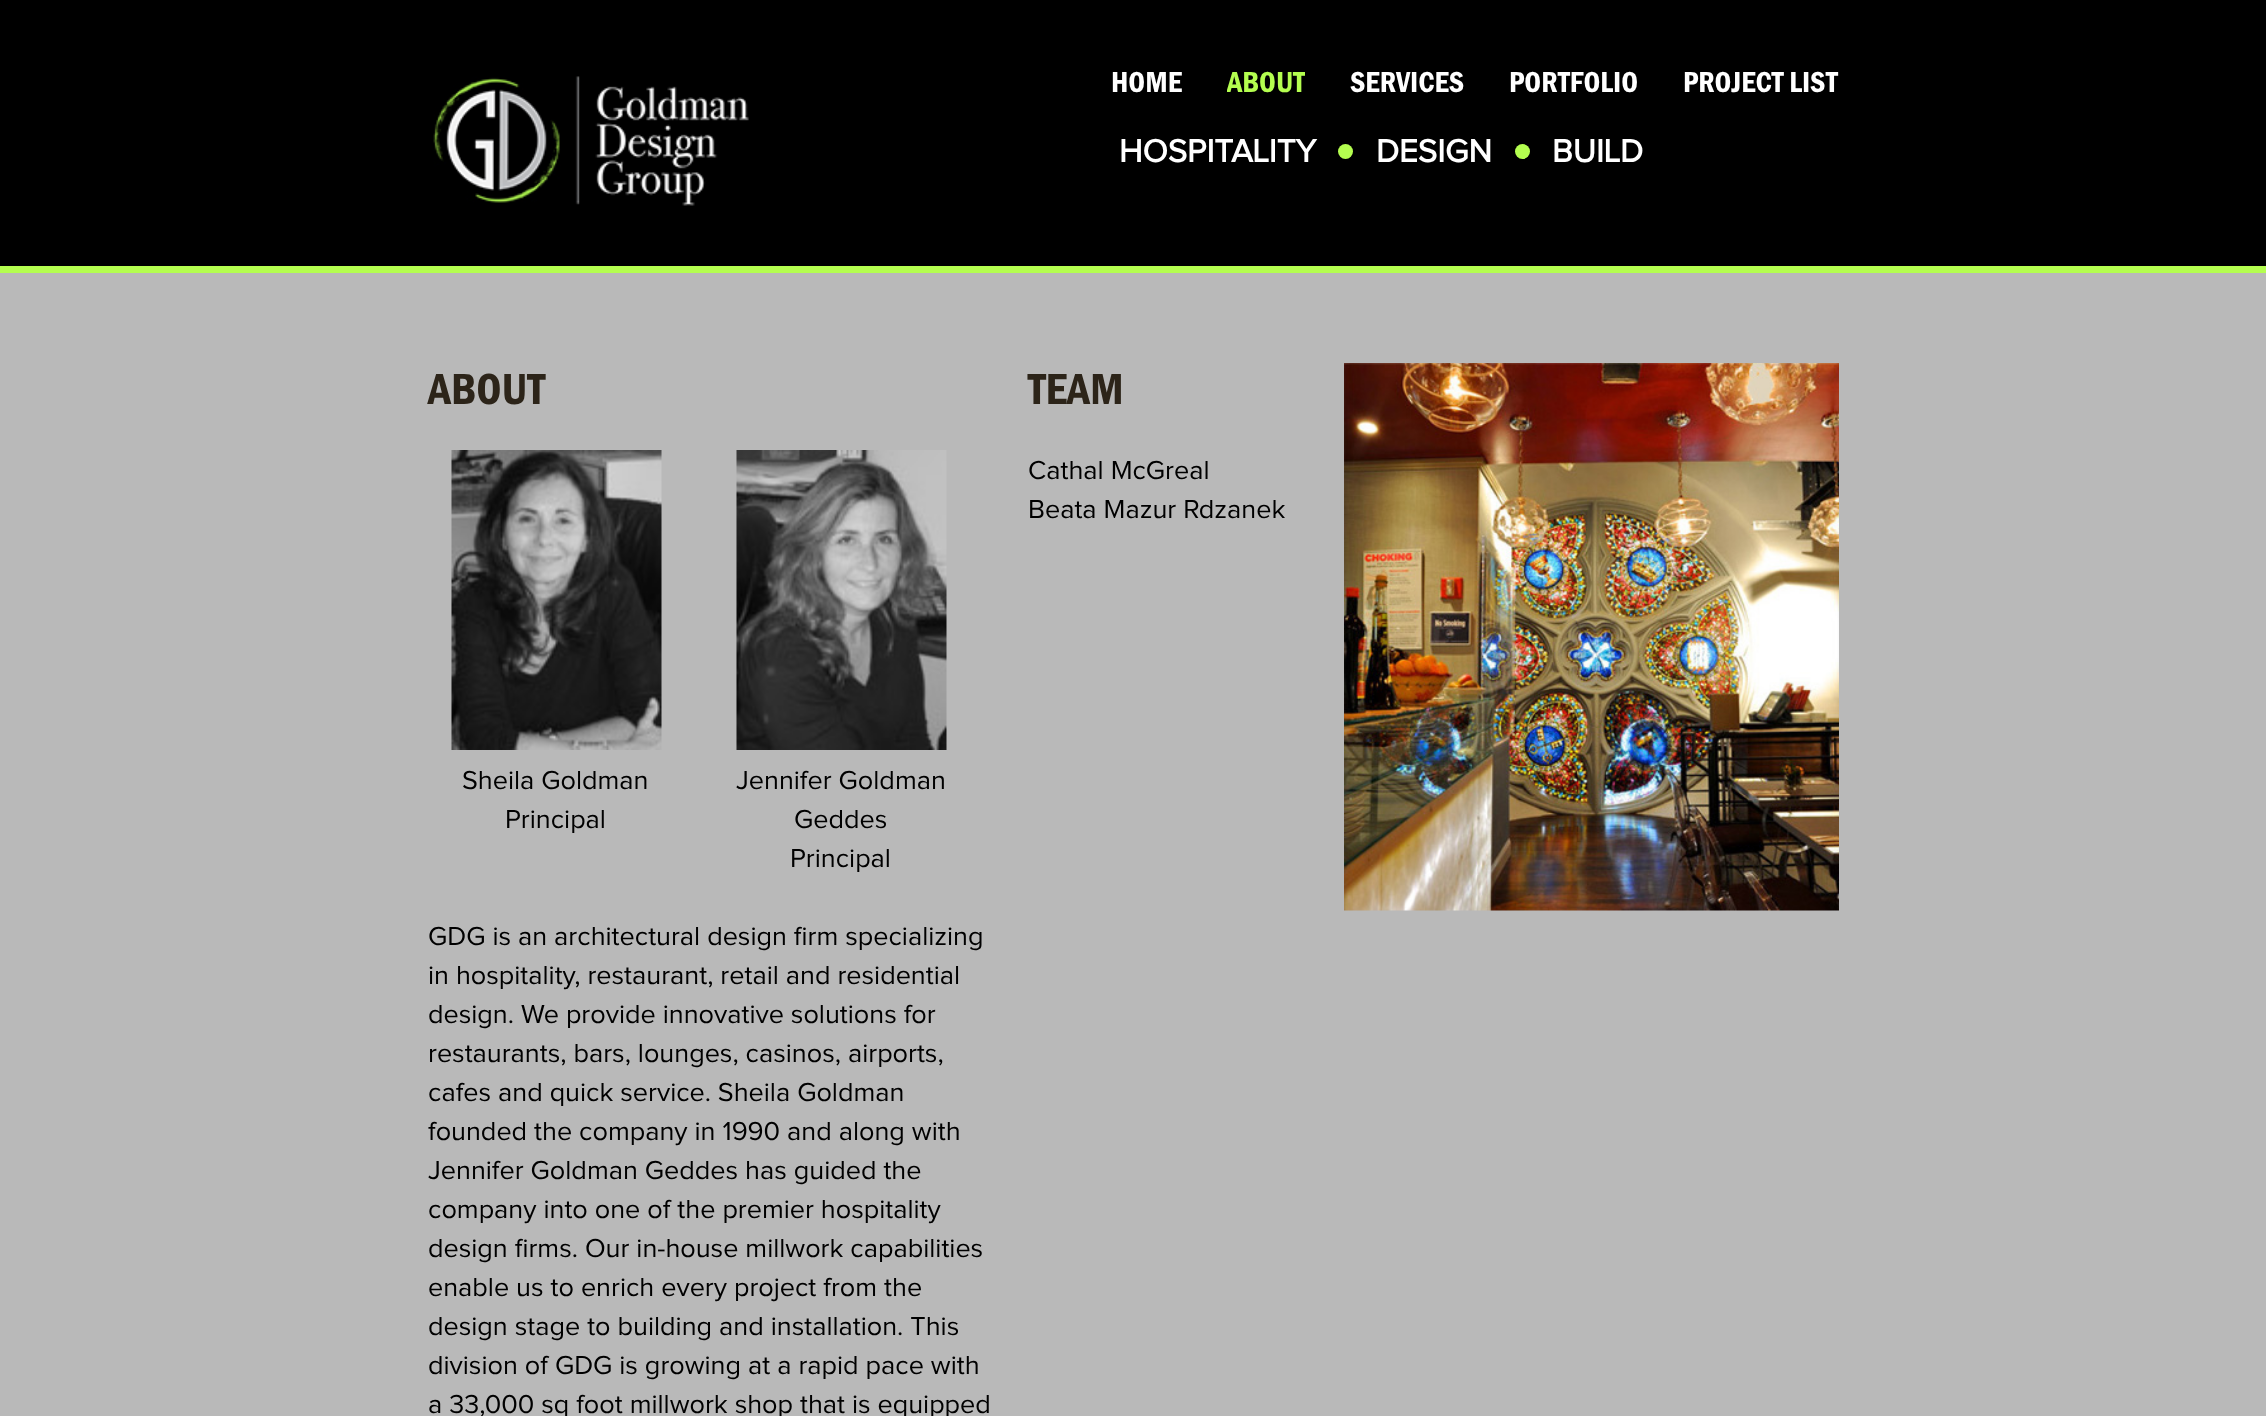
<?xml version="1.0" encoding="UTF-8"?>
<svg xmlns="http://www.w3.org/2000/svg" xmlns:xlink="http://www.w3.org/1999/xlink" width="2266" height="1416">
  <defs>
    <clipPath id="clip1"><rect x="1227" y="60" width="78" height="42" /></clipPath>
  </defs>
  <rect width="100%" height="100%" fill="#b9b9b9" />
  <rect width="2266" height="266" fill="#000000" />
  <rect y="266" width="2266" height="7" fill="#b4fe4f" />
  <image x="433" y="76" width="316" height="130" xlink:href="image1.png" />
  <circle cx="1345.5" cy="151.5" r="7.5" fill="#b4fe4f" />
  <circle cx="1522.5" cy="151.5" r="7.5" fill="#b4fe4f" />
  <image x="451" y="450" width="211" height="300" xlink:href="image2.png" />
  <image x="736" y="450" width="211" height="300" xlink:href="image3.png" />
  <image x="1344" y="363" width="495" height="548" xlink:href="image4.png" />
  <text x="1111" y="92" style="font-family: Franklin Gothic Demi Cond; font-size: 30px; fill: #ffffff">HOME</text>
  <g clip-path="url(#clip1)">
    <text x="1227" y="92" style="font-family: Franklin Gothic Demi Cond; font-size: 30px; fill: #b4fe4f">ABOUT</text>
  </g>
  <text x="1350" y="92" style="font-family: Franklin Gothic Demi Cond; font-size: 30px; fill: #ffffff">SERVICES</text>
  <text x="1509" y="92" style="font-family: Franklin Gothic Demi Cond; font-size: 30px; fill: #ffffff">PORTFOLIO</text>
  <text x="1683" y="92" style="font-family: Franklin Gothic Demi Cond; font-size: 30px; fill: #ffffff">PROJECT LIST</text>
  <text x="1119" y="162" style="font-family: Proxima Nova; font-size: 33px; font-weight: bold; fill: #ffffff">HOSPITALITY</text>
  <text x="1376" y="162" style="font-family: Proxima Nova; font-size: 33px; font-weight: bold; fill: #ffffff">DESIGN</text>
  <text x="1552" y="162" style="font-family: Proxima Nova; font-size: 33px; font-weight: bold; fill: #ffffff">BUILD</text>
  <text x="428" y="404" style="font-family: Franklin Gothic Demi Cond; font-size: 45px; fill: #2c2419">ABOUT</text>
  <text x="462" y="789" style="font-family: Proxima Nova; font-size: 27px; fill: #000000">Sheila Goldman</text>
  <text x="505" y="828" style="font-family: Proxima Nova; font-size: 27px; fill: #000000">Principal</text>
  <text x="736" y="789" style="font-family: Proxima Nova; font-size: 27px; fill: #000000">Jennifer Goldman</text>
  <text x="794" y="828" style="font-family: Proxima Nova; font-size: 27px; fill: #000000">Geddes</text>
  <text x="790" y="867" style="font-family: Proxima Nova; font-size: 27px; fill: #000000">Principal</text>
  <text x="428" y="945" style="font-family: Proxima Nova; font-size: 27px; fill: #000000">GDG is an architectural design firm specializing</text>
  <text x="428" y="984" style="font-family: Proxima Nova; font-size: 27px; fill: #000000">in hospitality, restaurant, retail and residential</text>
  <text x="428" y="1023" style="font-family: Proxima Nova; font-size: 27px; fill: #000000">design. We provide innovative solutions for</text>
  <text x="428" y="1062" style="font-family: Proxima Nova; font-size: 27px; fill: #000000">restaurants, bars, lounges, casinos, airports,</text>
  <text x="428" y="1101" style="font-family: Proxima Nova; font-size: 27px; fill: #000000">cafes and quick service. Sheila Goldman</text>
  <text x="428" y="1140" style="font-family: Proxima Nova; font-size: 27px; fill: #000000">founded the company in 1990 and along with</text>
  <text x="428" y="1179" style="font-family: Proxima Nova; font-size: 27px; fill: #000000">Jennifer Goldman Geddes has guided the</text>
  <text x="428" y="1218" style="font-family: Proxima Nova; font-size: 27px; fill: #000000">company into one of the premier hospitality</text>
  <text x="428" y="1257" style="font-family: Proxima Nova; font-size: 27px; fill: #000000">design firms. Our in-house millwork capabilities</text>
  <text x="428" y="1296" style="font-family: Proxima Nova; font-size: 27px; fill: #000000">enable us to enrich every project from the</text>
  <text x="428" y="1335" style="font-family: Proxima Nova; font-size: 27px; fill: #000000">design stage to building and installation. This</text>
  <text x="428" y="1374" style="font-family: Proxima Nova; font-size: 27px; fill: #000000">division of GDG is growing at a rapid pace with</text>
  <text x="428" y="1413" style="font-family: Proxima Nova; font-size: 27px; fill: #000000">a 33,000 sq foot millwork shop that is equipped</text>
  <text x="1028" y="404" style="font-family: Franklin Gothic Demi Cond; font-size: 45px; fill: #2c2419">TEAM</text>
  <text x="1028" y="479" style="font-family: Proxima Nova; font-size: 27px; fill: #000000">Cathal McGreal</text>
  <text x="1028" y="518" style="font-family: Proxima Nova; font-size: 27px; fill: #000000">Beata Mazur Rdzanek</text>
</svg>
